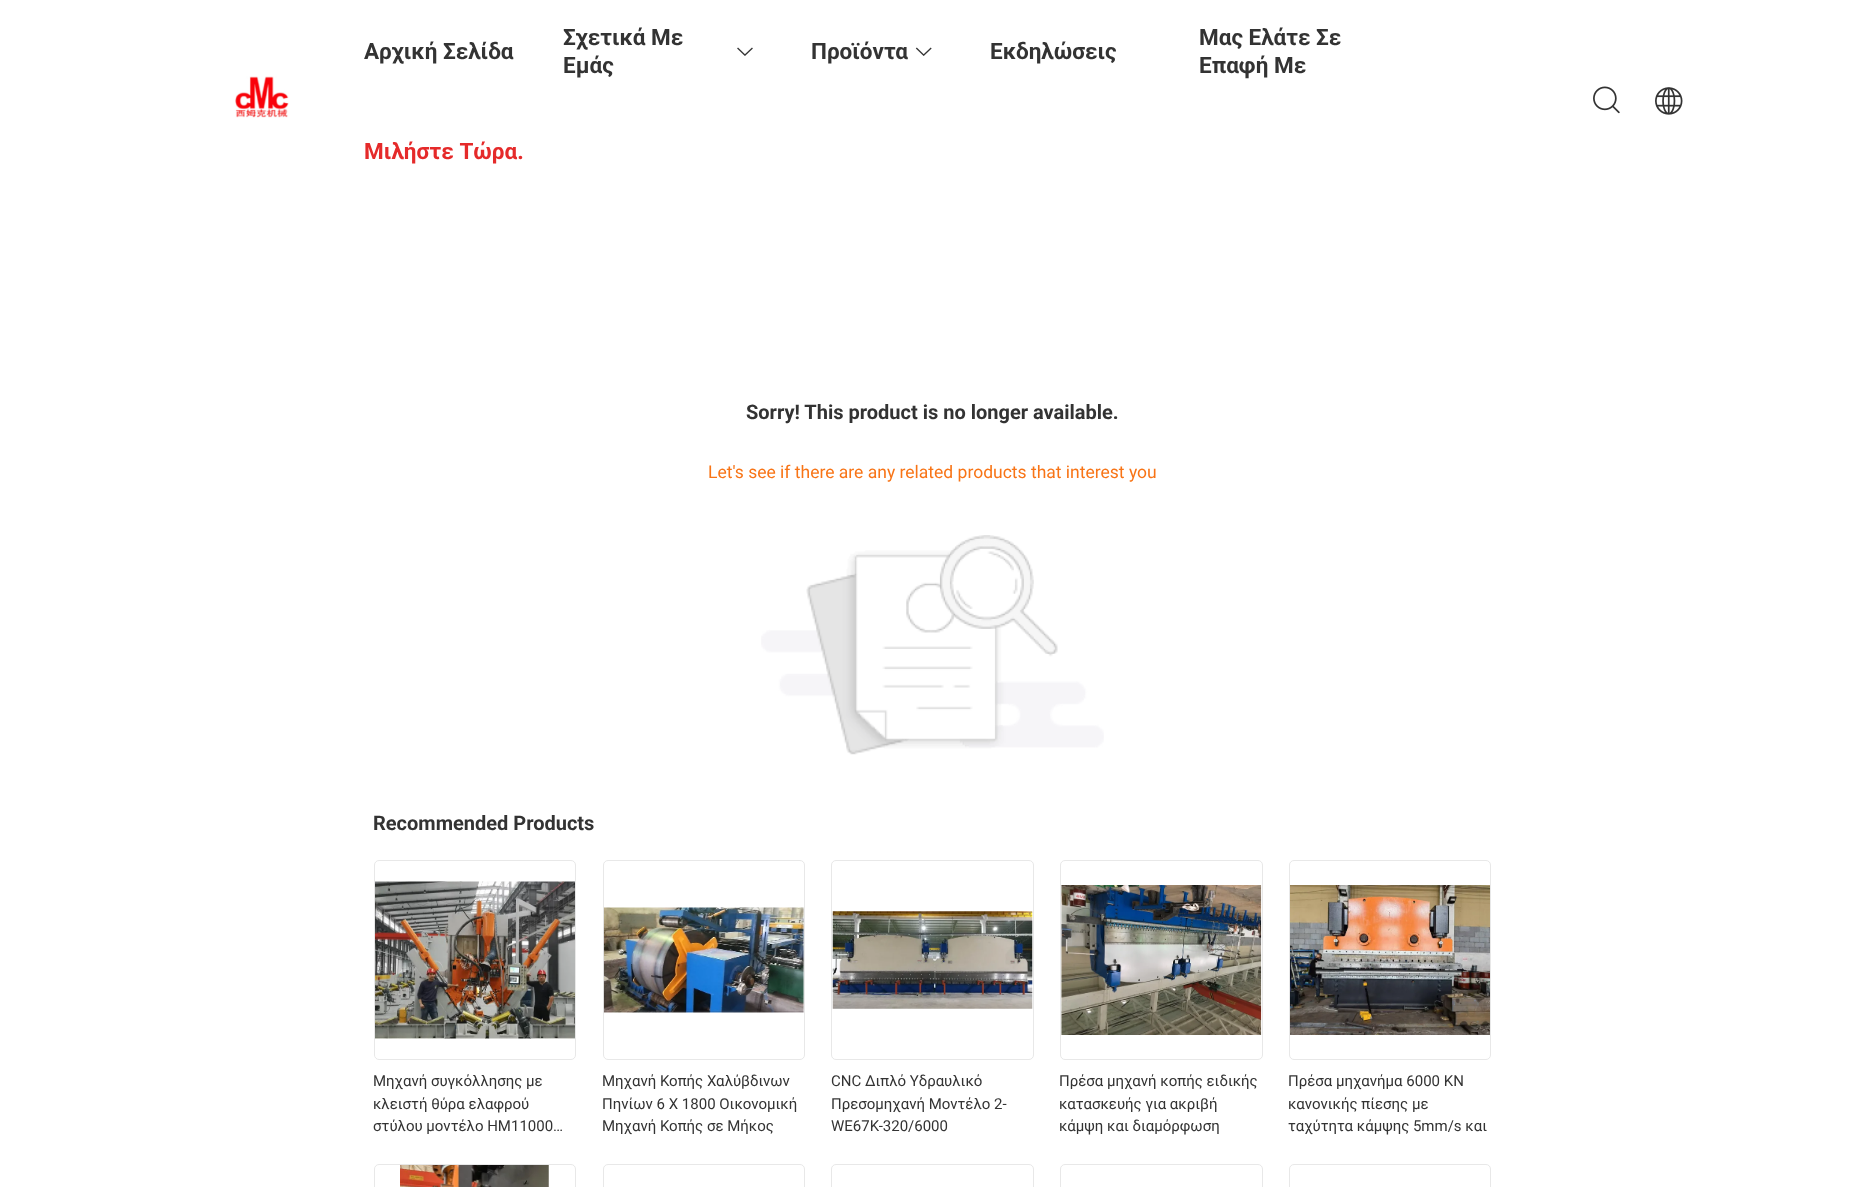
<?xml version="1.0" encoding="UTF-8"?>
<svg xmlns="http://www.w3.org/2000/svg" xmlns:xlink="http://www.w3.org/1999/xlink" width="1864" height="1187">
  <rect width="100%" height="100%" fill="#ffffff" />
  <image x="235" y="76" width="54" height="42" xlink:href="image1.png" />
  <image x="737" y="47" width="16" height="9" xlink:href="image2.png" />
  <image x="915" y="47" width="17" height="9" xlink:href="image3.png" />
  <image x="1593" y="86" width="27" height="28" xlink:href="image4.png" />
  <image x="1655" y="87" width="28" height="28" xlink:href="image5.png" />
  <image x="761" y="535" width="343" height="220" xlink:href="image6.png" />
  <rect x="374.5" y="860.5" width="201" height="199" rx="4.5" fill="none" stroke="#e8e8e8" />
  <image x="375" y="881" width="200" height="158" xlink:href="image7.png" />
  <rect x="603.5" y="860.5" width="201" height="199" rx="4.5" fill="none" stroke="#e8e8e8" />
  <image x="603" y="907" width="201" height="106" xlink:href="image8.png" />
  <rect x="831.5" y="860.5" width="202" height="199" rx="4.5" fill="none" stroke="#e8e8e8" />
  <image x="832" y="911" width="201" height="98" xlink:href="image9.png" />
  <rect x="1060.5" y="860.5" width="202" height="199" rx="4.5" fill="none" stroke="#e8e8e8" />
  <image x="1061" y="885" width="201" height="150" xlink:href="image10.png" />
  <rect x="1289.5" y="860.5" width="201" height="199" rx="4.5" fill="none" stroke="#e8e8e8" />
  <image x="1290" y="885" width="200" height="150" xlink:href="image11.png" />
  <rect x="374.5" y="1164.5" width="201" height="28" rx="4.5" fill="none" stroke="#e8e8e8" />
  <image x="400" y="1165" width="149" height="22" xlink:href="image12.png" />
  <rect x="603.5" y="1164.5" width="201" height="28" rx="4.5" fill="none" stroke="#e8e8e8" />
  <rect x="831.5" y="1164.5" width="202" height="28" rx="4.5" fill="none" stroke="#e8e8e8" />
  <rect x="1060.5" y="1164.5" width="202" height="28" rx="4.5" fill="none" stroke="#e8e8e8" />
  <rect x="1289.5" y="1164.5" width="201" height="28" rx="4.5" fill="none" stroke="#e8e8e8" />
  <text x="364" y="59" style="font-family: Roboto; font-size: 22.5px; font-weight: bold; fill: #333333">Αρχική Σελίδα</text>
  <text x="563" y="45" style="font-family: Roboto; font-size: 22.5px; font-weight: bold; fill: #333333">Σχετικά Με</text>
  <text x="563" y="73" style="font-family: Roboto; font-size: 22.5px; font-weight: bold; fill: #333333">Εμάς</text>
  <text x="811" y="59" style="font-family: Roboto; font-size: 22.5px; font-weight: bold; fill: #333333">Προϊόντα</text>
  <text x="990" y="59" style="font-family: Roboto; font-size: 22.5px; font-weight: bold; fill: #333333">Εκδηλώσεις</text>
  <text x="1199" y="45" style="font-family: Roboto; font-size: 22.5px; font-weight: bold; fill: #333333">Μας Ελάτε Σε</text>
  <text x="1199" y="73" style="font-family: Roboto; font-size: 22.5px; font-weight: bold; fill: #333333">Επαφή Με</text>
  <text x="364" y="159" style="font-family: Roboto; font-size: 22.5px; font-weight: bold; fill: #e52a2a">Μιλήστε Τώρα.</text>
  <text x="746" y="419" style="font-family: Roboto; font-size: 20px; font-weight: bold; fill: #333333">Sorry! This product is no longer available.</text>
  <text x="708" y="478" style="font-family: Roboto; font-size: 17.5px; fill: #f87416">Let's see if there are any related products that interest you</text>
  <text x="373" y="830" style="font-family: Roboto; font-size: 20px; font-weight: bold; fill: #333333">Recommended Products</text>
  <text x="373" y="1086" style="font-family: Roboto; font-size: 15px; fill: #333333">Μηχανή συγκόλλησης με</text>
  <text x="373" y="1109" style="font-family: Roboto; font-size: 15px; fill: #333333">κλειστή θύρα ελαφρού</text>
  <text x="373" y="1131" style="font-family: Roboto; font-size: 15px; fill: #333333">στύλου μοντέλο HM11000…</text>
  <text x="602" y="1086" style="font-family: Roboto; font-size: 15px; fill: #333333">Μηχανή Κοπής Χαλύβδινων</text>
  <text x="602" y="1109" style="font-family: Roboto; font-size: 15px; fill: #333333">Πηνίων 6 X 1800 Οικονομική</text>
  <text x="602" y="1131" style="font-family: Roboto; font-size: 15px; fill: #333333">Μηχανή Κοπής σε Μήκος</text>
  <text x="831" y="1086" style="font-family: Roboto; font-size: 15px; fill: #333333">CNC Διπλό Υδραυλικό</text>
  <text x="831" y="1109" style="font-family: Roboto; font-size: 15px; fill: #333333">Πρεσομηχανή Μοντέλο 2-</text>
  <text x="831" y="1131" style="font-family: Roboto; font-size: 15px; fill: #333333">WE67K-320/6000</text>
  <text x="1059" y="1086" style="font-family: Roboto; font-size: 15px; fill: #333333">Πρέσα μηχανή κοπής ειδικής</text>
  <text x="1059" y="1109" style="font-family: Roboto; font-size: 15px; fill: #333333">κατασκευής για ακριβή</text>
  <text x="1059" y="1131" style="font-family: Roboto; font-size: 15px; fill: #333333">κάμψη και διαμόρφωση</text>
  <text x="1288" y="1086" style="font-family: Roboto; font-size: 15px; fill: #333333">Πρέσα μηχανήμα 6000 KN</text>
  <text x="1288" y="1109" style="font-family: Roboto; font-size: 15px; fill: #333333">κανονικής πίεσης με</text>
  <text x="1288" y="1131" style="font-family: Roboto; font-size: 15px; fill: #333333">ταχύτητα κάμψης 5mm/s και</text>
</svg>
